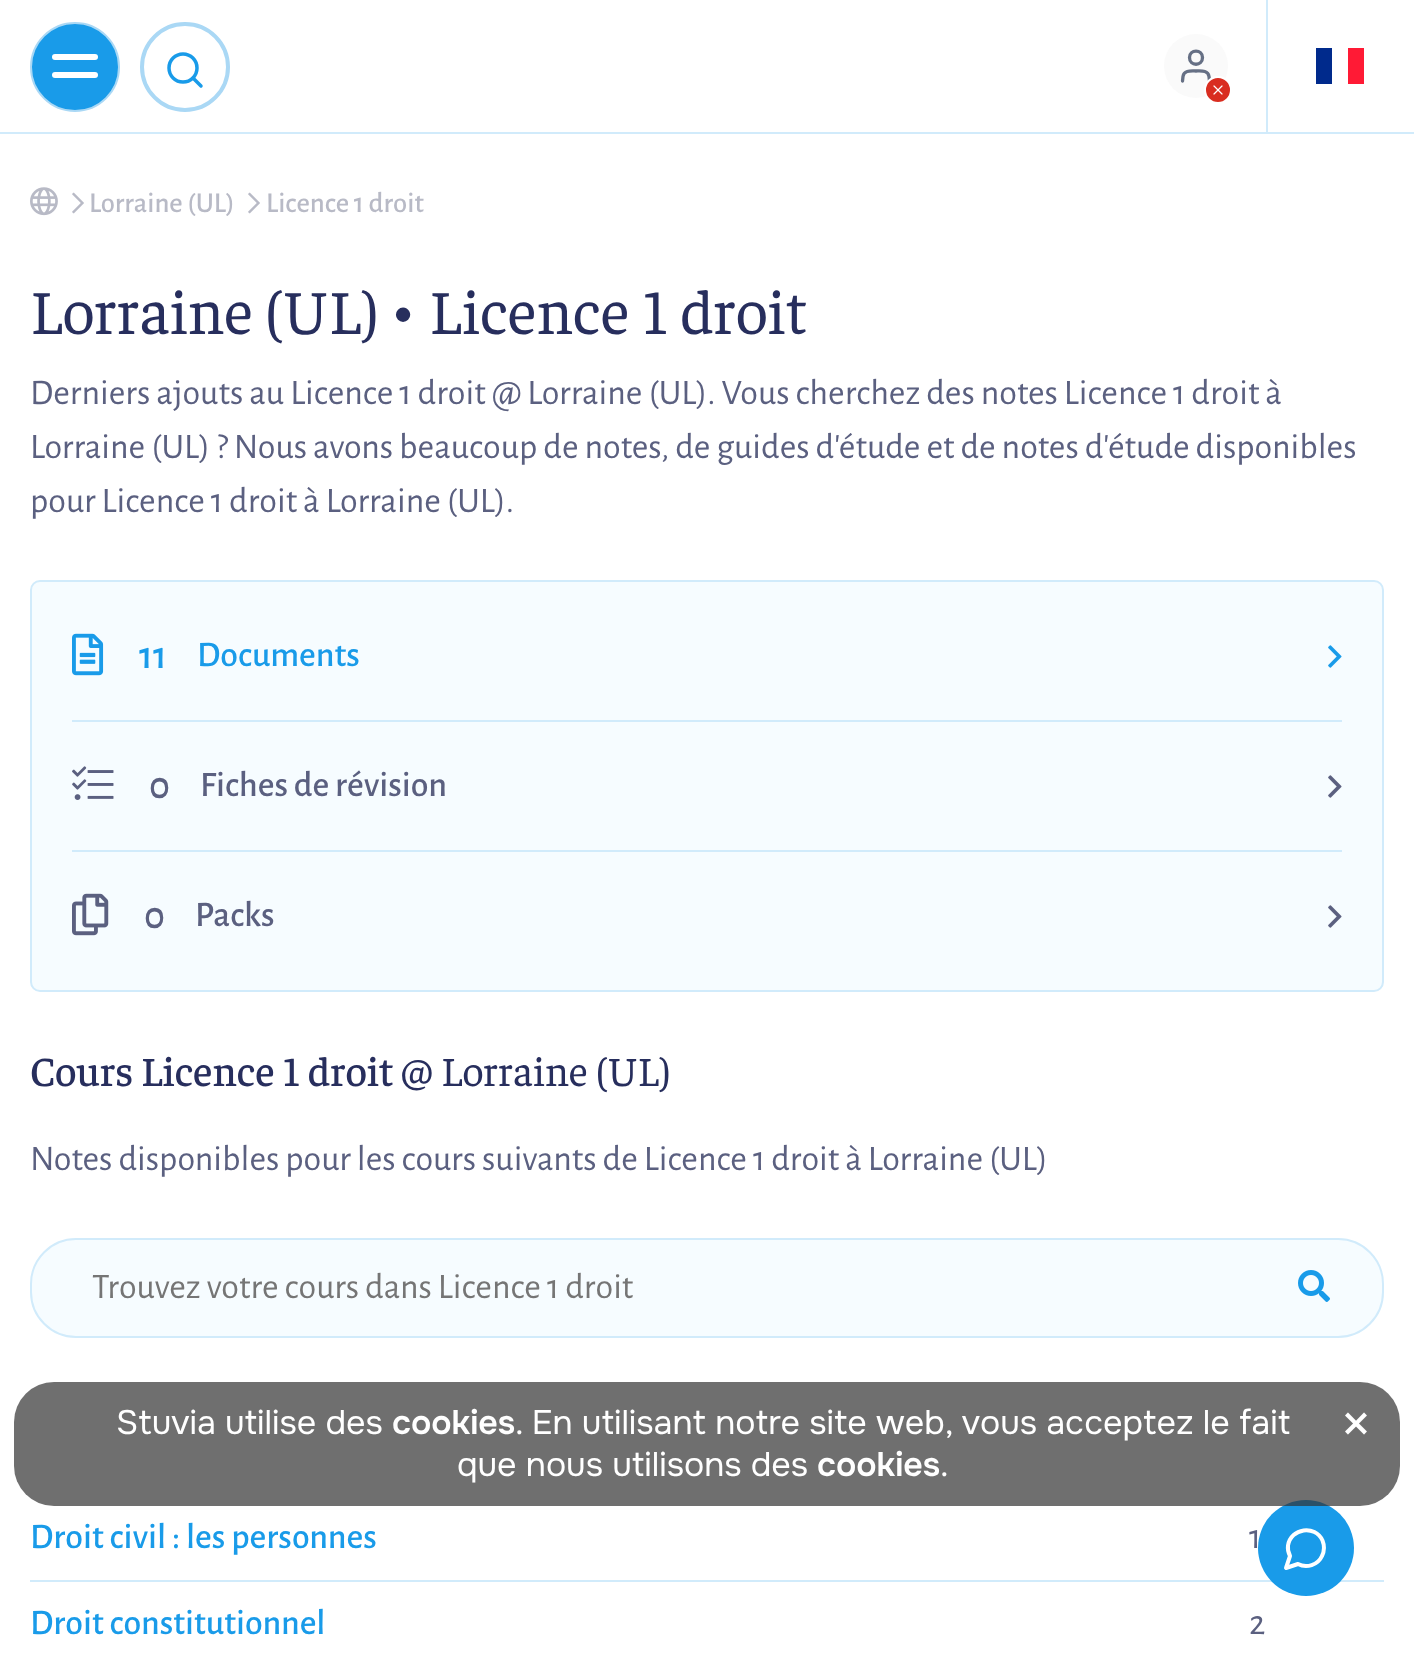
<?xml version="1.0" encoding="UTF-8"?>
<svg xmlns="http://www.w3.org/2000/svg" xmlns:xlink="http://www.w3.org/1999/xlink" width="1414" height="1656">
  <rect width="100%" height="100%" fill="#ffffff" />
  <rect y="132" width="1414" height="2" fill="#d1ebfb" />
  <circle cx="75" cy="67" r="44" fill="#199be9" stroke="#aad8f5" stroke-width="2" />
  <rect x="52" y="54" width="46" height="6" rx="3" fill="#ffffff" />
  <rect x="52" y="72" width="46" height="6" rx="3" fill="#ffffff" />
  <circle cx="185" cy="67" r="43" fill="none" stroke="#aad8f5" stroke-width="4" />
  <circle cx="183" cy="68" r="14" fill="none" stroke="#199be9" stroke-width="3.5" />
  <path d="M 201 86 l -8 -8" fill="none" stroke="#199be9" stroke-width="3.5" stroke-linecap="round" stroke-linejoin="round" />
  <circle cx="1196" cy="66" r="32" fill="#fafafa" />
  <path d="M 1209.5 81 l -0.5 -4.5 c -1 -6.5 -8 -5.5 -13 -5.5 c -5 0 -12 -1 -13 5.5 l -0.5 4.5 m 20 -23.5 c 0 9 -13 9 -13 0 c 0 -8.5 13 -8.5 13 0 z" fill="none" stroke="#667085" stroke-width="3.3" stroke-linecap="round" stroke-linejoin="round" />
  <circle cx="1218" cy="90" r="13" fill="#d92d20" stroke="#ffffff" stroke-width="2" />
  <image x="1213" y="85" width="10" height="10" xlink:href="image1.png" />
  <rect x="1266" width="2" height="132" fill="#d1ebfb" />
  <rect x="1316" y="48" width="16" height="36" fill="#002a8c" />
  <rect x="1348" y="48" width="16" height="36" fill="#ff1a35" />
  <image x="30" y="187" width="28" height="29" xlink:href="image2.png" />
  <image x="72" y="192" width="12" height="22" xlink:href="image3.png" />
  <image x="248" y="192" width="12" height="22" xlink:href="image3.png" />
  <rect x="31" y="581" width="1352" height="410" rx="9" fill="#f6fcff" stroke="#d1ebfb" stroke-width="2" />
  <rect x="72" y="720" width="1270" height="2" fill="#d1ebfb" />
  <image x="72" y="633" width="32" height="43" xlink:href="image4.png" />
  <image x="1328" y="645" width="14" height="23" xlink:href="image5.png" />
  <rect x="72" y="850" width="1270" height="2" fill="#d1ebfb" />
  <image x="72" y="766" width="42" height="34" xlink:href="image6.png" />
  <image x="1328" y="775" width="14" height="23" xlink:href="image7.png" />
  <image x="72" y="893" width="37" height="43" xlink:href="image8.png" />
  <image x="1328" y="905" width="14" height="23" xlink:href="image7.png" />
  <rect x="31" y="1239" width="1352" height="98" rx="45" fill="#f6fcff" stroke="#d1ebfb" stroke-width="2" />
  <image x="1298" y="1270" width="32" height="32" xlink:href="image9.png" />
  <rect x="30" y="1580" width="1354" height="2" fill="#d1ebfb" />
  <circle cx="1306" cy="1548" r="48" fill="#199be9" />
  <rect x="14" y="1382" width="1386" height="124" rx="40" fill="#323232" fill-opacity="0.7" />
  <path d="M 1298 1564 c 8.5 4.5 20 1 24 -8 c 2.5 -5 2.5 -10.5 0.5 -15.5 c -7.5 -16 -31.5 -12.5 -34.5 5 c -0.5 3.5 0.5 7.5 2 10.5 l -4 12 z" fill="none" stroke="#ffffff" stroke-width="4" stroke-linecap="round" stroke-linejoin="round" />
  <text x="89" y="212" style="font-family: Alegreya Sans; font-size: 28.75px; font-weight: 500; fill: #b8bac6">Lorraine (UL)</text>
  <text x="266" y="212" style="font-family: Alegreya Sans; font-size: 28.75px; font-weight: 500; fill: #b8bac6">Licence 1 droit</text>
  <text x="30" y="334" style="font-family: Faustina; font-size: 63px; fill: #272e5d">Lorraine (UL) • Licence 1 droit</text>
  <text x="30" y="404" style="font-family: Alegreya Sans; font-size: 36px; fill: #5b6080">Derniers ajouts au Licence 1 droit @ Lorraine (UL). Vous cherchez des notes Licence 1 droit à</text>
  <text x="30" y="458" style="font-family: Alegreya Sans; font-size: 36px; fill: #5b6080">Lorraine (UL) ? Nous avons beaucoup de notes, de guides d'étude et de notes d'étude disponibles</text>
  <text x="30" y="512" style="font-family: Alegreya Sans; font-size: 36px; fill: #5b6080">pour Licence 1 droit à Lorraine (UL).</text>
  <text x="139" y="668" style="font-family: Alegreya Sans; font-size: 40px; font-weight: 500; fill: #199be9">11</text>
  <text x="197" y="666" style="font-family: Alegreya Sans; font-size: 36px; font-weight: 500; fill: #199be9">Documents</text>
  <text x="149" y="798" style="font-family: Alegreya Sans; font-size: 40px; font-weight: 500; fill: #5b6080">0</text>
  <text x="200" y="796" style="font-family: Alegreya Sans; font-size: 36px; font-weight: 500; fill: #5b6080">Fiches de révision</text>
  <text x="144" y="928" style="font-family: Alegreya Sans; font-size: 40px; font-weight: 500; fill: #5b6080">0</text>
  <text x="195" y="926" style="font-family: Alegreya Sans; font-size: 36px; font-weight: 500; fill: #5b6080">Packs</text>
  <text x="30" y="1086" style="font-family: Faustina; font-size: 41.5px; font-weight: 500; fill: #272e5d">Cours Licence 1 droit</text>
  <text x="401" y="1086" style="font-family: Faustina; font-size: 41.5px; fill: #272e5d">@ Lorraine (UL)</text>
  <text x="30" y="1170" style="font-family: Alegreya Sans; font-size: 36px; fill: #5b6080">Notes disponibles pour les cours suivants de Licence 1 droit à Lorraine (UL)</text>
  <text x="92" y="1298" style="font-family: Alegreya Sans; font-size: 36px; fill: #757575">Trouvez votre cours dans Licence 1 droit</text>
  <text x="30" y="1548" style="font-family: Alegreya Sans; font-size: 36px; font-weight: 500; fill: #199be9">Droit civil : les personnes</text>
  <text x="1249" y="1548" style="font-family: Alegreya Sans; font-size: 36px; fill: #5b6080">1</text>
  <text x="30" y="1634" style="font-family: Alegreya Sans; font-size: 36px; font-weight: 500; fill: #199be9">Droit constitutionnel</text>
  <text x="1249" y="1634" style="font-family: Alegreya Sans; font-size: 36px; fill: #5b6080">2</text>
  <text x="116" y="1434" style="font-family: Onest; font-size: 34px; fill: #ffffff">Stuvia utilise des</text>
  <text x="392" y="1434" style="font-family: Onest; font-size: 34px; font-weight: 600; fill: #ffffff">cookies</text>
  <text x="515" y="1434" style="font-family: Onest; font-size: 34px; fill: #ffffff">. En utilisant notre site web, vous acceptez le fait</text>
  <text x="457" y="1476" style="font-family: Onest; font-size: 34px; fill: #ffffff">que nous utilisons des</text>
  <text x="817" y="1476" style="font-family: Onest; font-size: 34px; font-weight: 600; fill: #ffffff">cookies</text>
  <text x="940" y="1476" style="font-family: Onest; font-size: 34px; fill: #ffffff">.</text>
  <text x="1340" y="1444" style="font-family: Onest; font-size: 58px; fill: #ffffff">×</text>
</svg>
